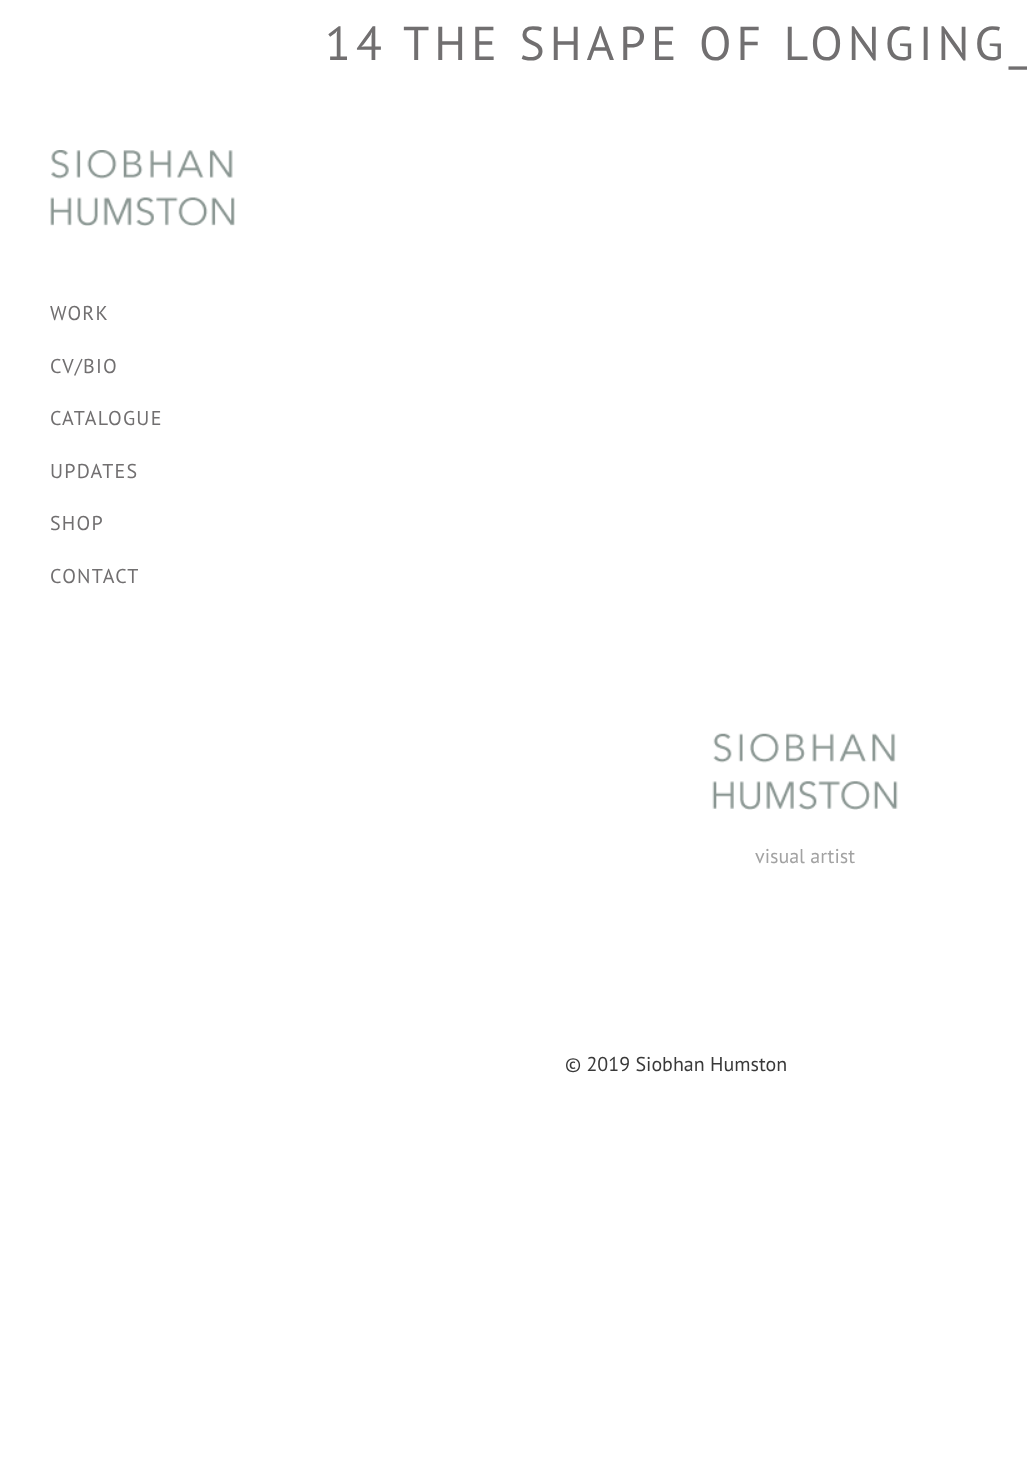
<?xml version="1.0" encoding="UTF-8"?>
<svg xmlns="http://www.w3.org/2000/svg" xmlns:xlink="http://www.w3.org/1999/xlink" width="1027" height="1463">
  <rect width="100%" height="100%" fill="#ffffff" />
  <image x="50" y="150" width="185" height="76" xlink:href="image1.png" />
  <image x="712" y="733" width="186" height="77" xlink:href="image2.png" />
  <text x="325" y="60" style="font-family: PT Sans; font-size: 47.5px; letter-spacing: 5px; fill: #716f70">14 THE SHAPE OF LONGING_</text>
  <text x="50" y="320" style="font-family: PT Sans; font-size: 20px; letter-spacing: 1.25px; fill: #716f70">WORK</text>
  <text x="50" y="373" style="font-family: PT Sans; font-size: 20px; letter-spacing: 1.25px; fill: #716f70">CV/BIO</text>
  <text x="50" y="425" style="font-family: PT Sans; font-size: 20px; letter-spacing: 1.25px; fill: #716f70">CATALOGUE</text>
  <text x="50" y="478" style="font-family: PT Sans; font-size: 20px; letter-spacing: 1.25px; fill: #716f70">UPDATES</text>
  <text x="50" y="530" style="font-family: PT Sans; font-size: 20px; letter-spacing: 1.25px; fill: #716f70">SHOP</text>
  <text x="50" y="583" style="font-family: PT Sans; font-size: 20px; letter-spacing: 1.25px; fill: #716f70">CONTACT</text>
  <text x="755" y="863" style="font-family: PT Sans; font-size: 20px; fill: #a2a2a2">visual artist</text>
  <text x="565" y="1071" style="font-family: PT Sans; font-size: 20px; fill: #393939">© 2019 Siobhan Humston</text>
</svg>
